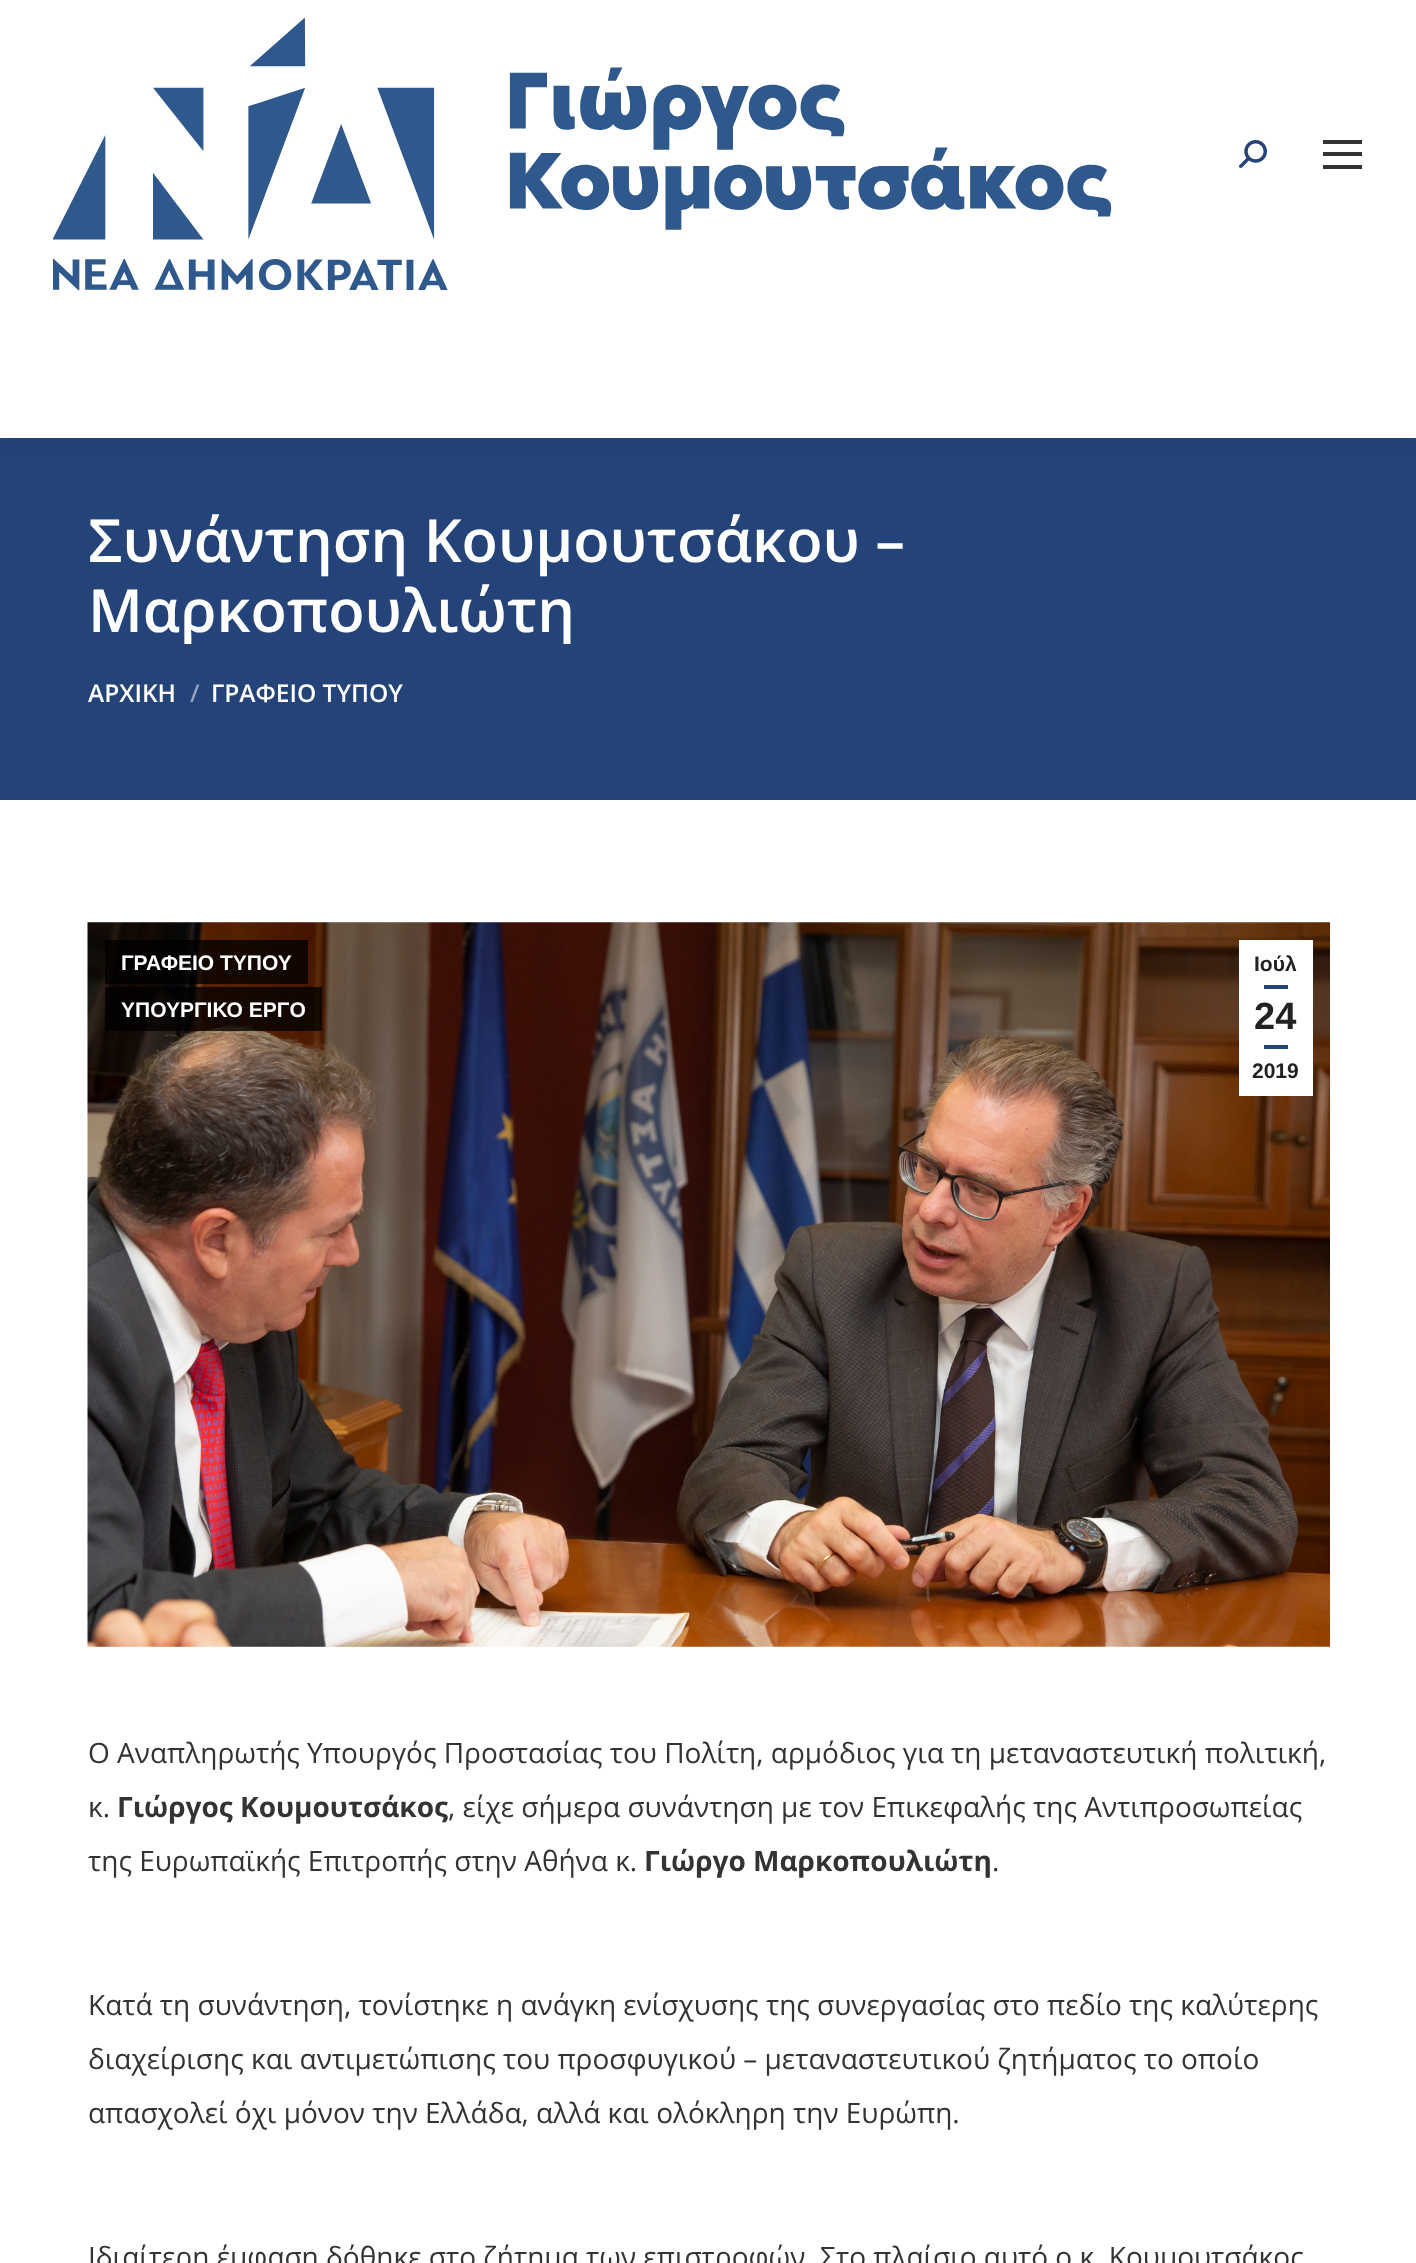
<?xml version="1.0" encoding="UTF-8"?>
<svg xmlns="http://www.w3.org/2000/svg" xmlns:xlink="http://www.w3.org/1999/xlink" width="1416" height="2263">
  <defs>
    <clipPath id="clip1"><rect x="88" y="504" width="1242" height="140" /></clipPath>
  </defs>
  <rect width="100%" height="100%" fill="#ffffff" />
  <rect y="438" width="1416" height="362" fill="#244479" />
  <rect x="-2" y="-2" width="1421" height="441" fill="#000000" fill-opacity="0.07" filter="blur(13px)" />
  <rect width="1416" height="438" fill="#ffffff" />
  <image x="53" y="18" width="1059" height="273" xlink:href="image1.png" />
  <image x="1239" y="140" width="28" height="28" xlink:href="image2.png" />
  <rect x="1323" y="140" width="39" height="4" fill="#333333" />
  <rect x="1323" y="152" width="39" height="4" fill="#333333" />
  <rect x="1323" y="165" width="39" height="4" fill="#333333" />
  <image x="87" y="922" width="1243" height="725" xlink:href="image3.png" />
  <rect x="105" y="940" width="203" height="44" fill="#000000" fill-opacity="0.75" />
  <rect x="105" y="987" width="217" height="44" fill="#000000" fill-opacity="0.75" />
  <rect x="1239" y="940" width="74" height="156" fill="#ffffff" />
  <rect x="1264" y="985" width="24" height="4" fill="#244479" />
  <rect x="1264" y="1045" width="24" height="4" fill="#244479" />
  <text x="88" y="562" style="font-family: Open Sans; font-size: 59.5px; font-weight: 600; fill: #ffffff">Συνάντηση Κουμουτσάκου –</text>
  <g clip-path="url(#clip1)">
    <text x="88" y="632" style="font-family: Open Sans; font-size: 59.5px; font-weight: 600; fill: #ffffff">Μαρκοπουλιώτη</text>
  </g>
  <text x="88" y="702" style="font-family: Open Sans; font-size: 24.5px; font-weight: 600; fill: #ffffff">ΑΡΧΙΚΗ</text>
  <text x="190" y="702" style="font-family: Open Sans; font-size: 24.5px; font-weight: 600; fill: #92a2bc">/</text>
  <text x="211" y="702" style="font-family: Open Sans; font-size: 24.5px; font-weight: 600; fill: #ffffff">ΓΡΑΦΕΙΟ ΤΥΠΟΥ</text>
  <text x="121" y="970" style="font-family: Liberation Sans; font-size: 21px; font-weight: bold; fill: #ffffff">ΓΡΑΦΕΙΟ ΤΥΠΟΥ</text>
  <text x="121" y="1017" style="font-family: Liberation Sans; font-size: 21px; font-weight: bold; fill: #ffffff">ΥΠΟΥΡΓΙΚΟ ΕΡΓΟ</text>
  <text x="1254" y="971" style="font-family: Liberation Sans; font-size: 21px; font-weight: bold; fill: #222222">Ιούλ</text>
  <text x="1254" y="1029" style="font-family: Liberation Sans; font-size: 38px; font-weight: bold; fill: #222222">24</text>
  <text x="1252" y="1078" style="font-family: Liberation Sans; font-size: 21px; font-weight: bold; fill: #222222">2019</text>
  <text x="88" y="1763" style="font-family: Open Sans; font-size: 28px; fill: #333333">O Αναπληρωτής Υπουργός Προστασίας του Πολίτη, αρμόδιος για τη μεταναστευτική πολιτική,</text>
  <text x="88" y="1817" style="font-family: Open Sans; font-size: 28px; fill: #333333">κ.</text>
  <text x="117" y="1817" style="font-family: Open Sans; font-size: 28px; font-weight: bold; fill: #333333">Γιώργος Κουμουτσάκος</text>
  <text x="448" y="1817" style="font-family: Open Sans; font-size: 28px; fill: #333333">, είχε σήμερα συνάντηση με τον Επικεφαλής της Αντιπροσωπείας</text>
  <text x="88" y="1871" style="font-family: Open Sans; font-size: 28px; fill: #333333">της Ευρωπαϊκής Επιτροπής στην Αθήνα κ.</text>
  <text x="644" y="1871" style="font-family: Open Sans; font-size: 28px; font-weight: bold; fill: #333333">Γιώργο Μαρκοπουλιώτη</text>
  <text x="992" y="1871" style="font-family: Open Sans; font-size: 28px; fill: #333333">.</text>
  <text x="88" y="2015" style="font-family: Open Sans; font-size: 28px; fill: #333333">Κατά τη συνάντηση, τονίστηκε η ανάγκη ενίσχυσης της συνεργασίας στο πεδίο της καλύτερης</text>
  <text x="88" y="2069" style="font-family: Open Sans; font-size: 28px; fill: #333333">διαχείρισης και αντιμετώπισης του προσφυγικού – μεταναστευτικού ζητήματος το οποίο</text>
  <text x="88" y="2123" style="font-family: Open Sans; font-size: 28px; fill: #333333">απασχολεί όχι μόνον την Ελλάδα, αλλά και ολόκληρη την Ευρώπη.</text>
  <text x="88" y="2267" style="font-family: Open Sans; font-size: 28px; fill: #333333">Ιδιαίτερη έμφαση δόθηκε στο ζήτημα των επιστροφών. Στο πλαίσιο αυτό ο κ. Κουμουτσάκος</text>
</svg>
